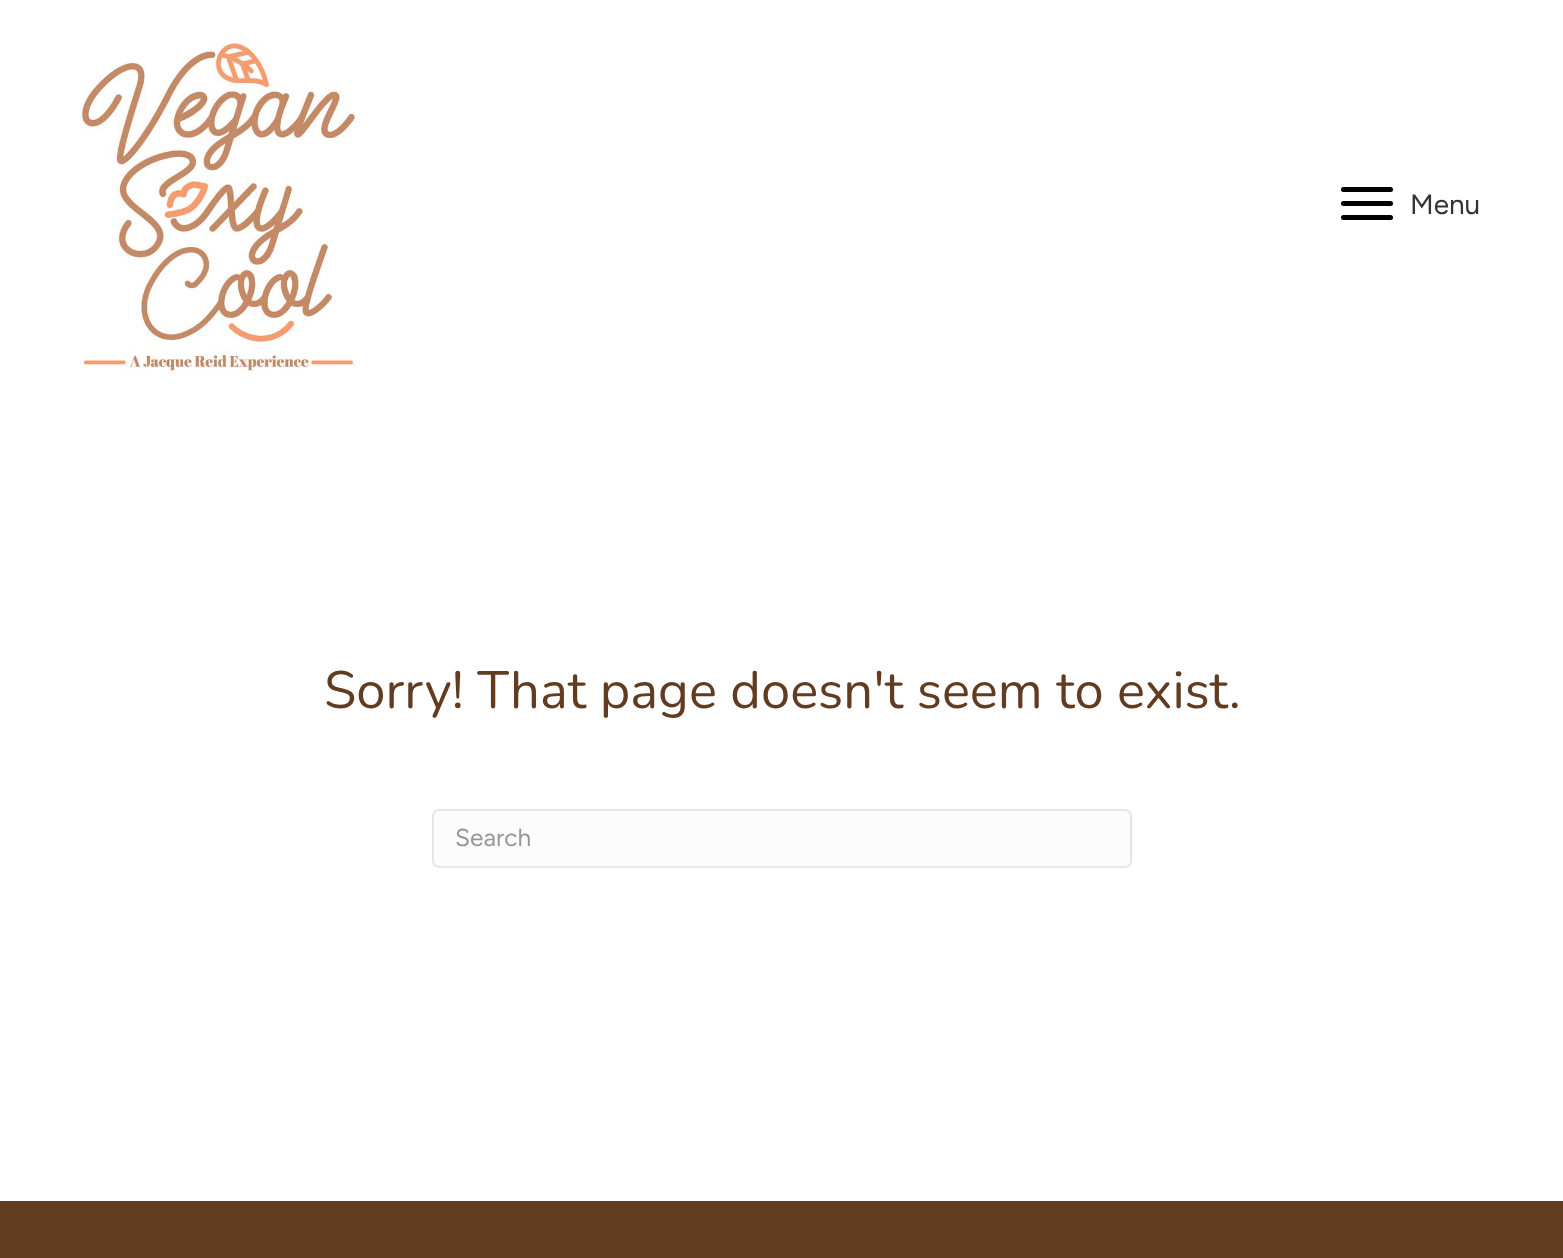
<?xml version="1.0" encoding="UTF-8"?>
<svg xmlns="http://www.w3.org/2000/svg" xmlns:xlink="http://www.w3.org/1999/xlink" width="1563" height="1258">
  <rect width="100%" height="100%" fill="#ffffff" />
  <image x="79" y="35" width="277" height="342" xlink:href="image1.png" />
  <rect x="1341" y="201" width="52" height="5" rx="2.5" fill="#000000" />
  <rect x="1341" y="187" width="52" height="5" rx="2.5" fill="#000000" />
  <rect x="1341" y="215" width="52" height="5" rx="2.5" fill="#000000" />
  <rect x="433" y="810" width="698" height="57" rx="6" fill="#fcfcfc" stroke="#e6e6e6" stroke-width="2" />
  <rect y="1201" width="1563" height="57" fill="#623c21" />
  <text x="1410" y="214" style="font-family: Figtree; font-size: 28px; fill: #333333">Menu</text>
  <text x="324" y="708" style="font-family: Nunito; font-size: 52.5px; fill: #623c21">Sorry! That page doesn't seem to exist.</text>
  <text x="455" y="846" style="font-family: Figtree; font-size: 24.5px; fill: #979797">Search</text>
</svg>
